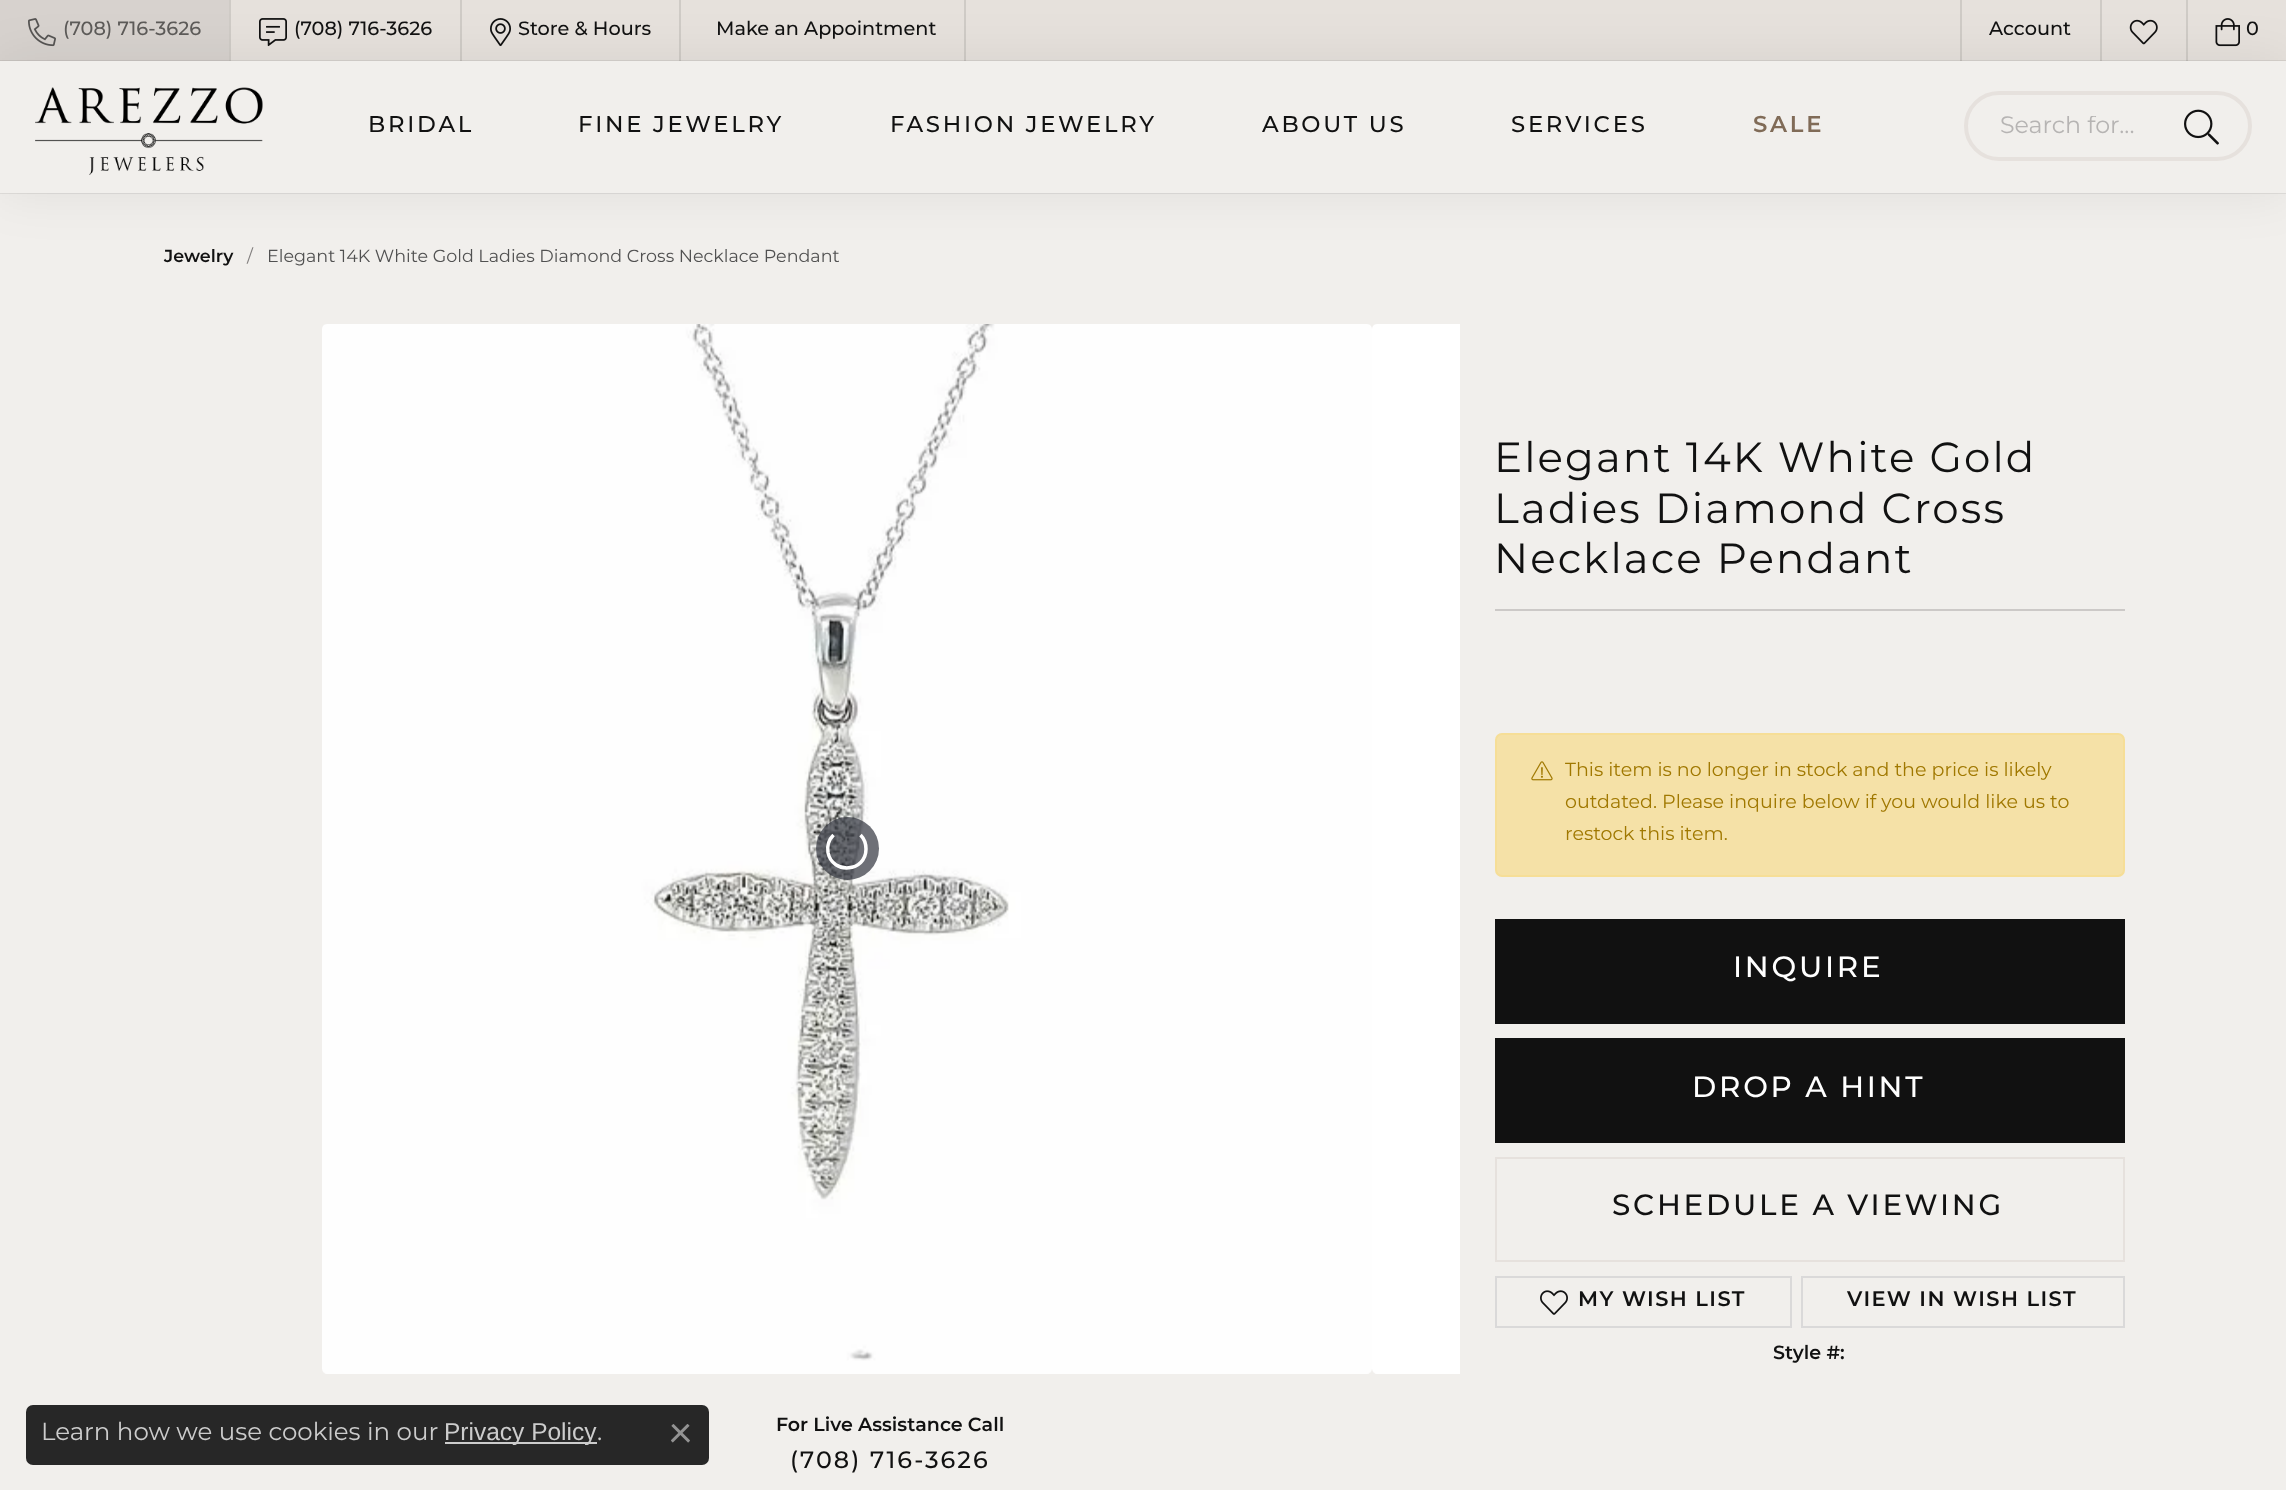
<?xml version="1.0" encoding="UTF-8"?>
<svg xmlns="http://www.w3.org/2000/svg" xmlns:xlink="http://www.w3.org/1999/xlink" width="2286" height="1490">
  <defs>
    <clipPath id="clip1"><rect x="2000" y="116" width="151" height="22" /></clipPath>
  </defs>
  <rect width="100%" height="100%" fill="#e6e1dc" />
  <rect x="229" width="2" height="61" fill="#cfcbc6" />
  <rect width="229" height="61" fill="#d7d2ce" />
  <image x="28" y="18" width="28" height="29" xlink:href="image1.png" />
  <rect x="460" width="2" height="61" fill="#cfcbc6" />
  <image x="259" y="18" width="28" height="29" xlink:href="image2.png" />
  <rect x="679" width="2" height="61" fill="#cfcbc6" />
  <image x="490" y="18" width="21" height="29" xlink:href="image3.png" />
  <rect x="964" width="2" height="61" fill="#cfcbc6" />
  <rect x="1960" width="2" height="61" fill="#cfcbc6" />
  <rect x="2100" width="2" height="61" fill="#cfcbc6" />
  <image x="2129" y="19" width="29" height="26" xlink:href="image4.png" />
  <rect x="2186" width="2" height="61" fill="#cfcbc6" />
  <image x="2215" y="18" width="25" height="29" xlink:href="image5.png" />
  <rect y="193" width="2286" height="1297" fill="#f1efec" />
  <rect y="61" width="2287" height="132" fill="#000000" fill-opacity="0.07" filter="blur(26px)" />
  <rect x="-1" y="61" width="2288" height="132" fill="none" stroke="#000000" stroke-opacity="0.07" stroke-width="2" />
  <rect y="61" width="2286" height="132" fill="#f1efec" />
  <image x="35" y="87" width="228" height="88" xlink:href="image6.png" />
  <rect x="1966" y="93" width="284" height="66" rx="33" fill="none" stroke="#e6e1dd" stroke-width="4" />
  <image x="2184" y="109" width="35" height="36" xlink:href="image7.png" />
  <rect x="1495" y="609" width="630" height="2" fill="#ccc9c7" />
  <rect x="1495" y="733" width="630" height="144" rx="7" fill="#f5e1a7" />
  <rect x="1496" y="734" width="628" height="142" rx="6" fill="none" stroke="#ffc107" stroke-opacity="0.1" stroke-width="2" />
  <image x="1531" y="761" width="22" height="20" xlink:href="image8.png" />
  <rect x="1495" y="919" width="630" height="105" fill="#111111" />
  <rect x="1495" y="1038" width="630" height="105" fill="#111111" />
  <rect x="1496" y="1158" width="628" height="103" fill="none" stroke="#e6e1dd" stroke-width="2" />
  <rect x="1496" y="1277" width="295" height="50" fill="none" stroke="#dad9d9" stroke-width="2" />
  <image x="1540" y="1290" width="28" height="25" xlink:href="image9.png" />
  <rect x="1802" y="1277" width="322" height="50" fill="none" stroke="#dad9d9" stroke-width="2" />
  <image x="322" y="324" width="1050" height="1050" xlink:href="image10.png" />
  <circle cx="847.5" cy="848.5" r="31.5" fill="#31333d" fill-opacity="0.7" />
  <path d="M 860.5 835 c 3.5 3.5 5.5 8.5 5.5 14 c 0 23 -33.5 26 -38 3.5 c -1 -6 1 -13 5.5 -17.5" fill="none" stroke="#ffffff" stroke-width="3.5" />
  <image x="1372" y="324" width="88" height="1050" xlink:href="image11.png" />
  <rect x="26" y="1405" width="683" height="60" rx="7" fill="#272727" />
  <rect x="445" y="1442" width="152" height="2" fill="#cccccc" />
  <image x="671" y="1424" width="19" height="19" xlink:href="image12.png" />
  <text x="63" y="35" style="font-family: Montserrat; font-size: 19.25px; font-weight: 500; fill: #5c5a58">(708) 716-3626</text>
  <text x="294" y="35" style="font-family: Montserrat; font-size: 19.25px; font-weight: 500; fill: #111111">(708) 716-3626</text>
  <text x="518" y="35" style="font-family: Montserrat; font-size: 19.25px; font-weight: 500; fill: #111111">Store &amp; Hours</text>
  <text x="716" y="35" style="font-family: Montserrat; font-size: 19.25px; font-weight: 500; fill: #111111">Make an Appointment</text>
  <text x="1989" y="35" style="font-family: Montserrat; font-size: 19.25px; font-weight: 500; fill: #111111">Account</text>
  <text x="2246" y="35" style="font-family: Montserrat; font-size: 19.25px; font-weight: 500; fill: #111111">0</text>
  <text x="368" y="132" style="font-family: Montserrat; font-size: 22.75px; font-weight: 500; letter-spacing: 2.75px; fill: #111111">BRIDAL</text>
  <text x="578" y="132" style="font-family: Montserrat; font-size: 22.75px; font-weight: 500; letter-spacing: 2.75px; fill: #111111">FINE JEWELRY</text>
  <text x="890" y="132" style="font-family: Montserrat; font-size: 22.75px; font-weight: 500; letter-spacing: 2.75px; fill: #111111">FASHION JEWELRY</text>
  <text x="1262" y="132" style="font-family: Montserrat; font-size: 22.75px; font-weight: 500; letter-spacing: 2.75px; fill: #111111">ABOUT US</text>
  <text x="1511" y="132" style="font-family: Montserrat; font-size: 22.75px; font-weight: 500; letter-spacing: 2.75px; fill: #111111">SERVICES</text>
  <text x="1753" y="132" style="font-family: Montserrat; font-size: 22.75px; font-weight: 600; letter-spacing: 2.75px; fill: #806b57">SALE</text>
  <g clip-path="url(#clip1)">
    <text x="2000" y="133" style="font-family: Montserrat; font-size: 23.75px; fill: #b6b4b3">Search for...</text>
  </g>
  <text x="164" y="262" style="font-family: Montserrat; font-size: 17.5px; font-weight: 600; fill: #111111">Jewelry</text>
  <text x="247" y="262" style="font-family: Montserrat; font-size: 17.5px; fill: #817e7d">/</text>
  <text x="267" y="262" style="font-family: Montserrat; font-size: 17.5px; fill: #515151">Elegant 14K White Gold Ladies Diamond Cross Necklace Pendant</text>
  <text x="1494" y="472" style="font-family: Montserrat; font-size: 42px; letter-spacing: 2.1px; fill: #111111">Elegant 14K White Gold</text>
  <text x="1494" y="523" style="font-family: Montserrat; font-size: 42px; letter-spacing: 2.1px; fill: #111111">Ladies Diamond Cross</text>
  <text x="1494" y="573" style="font-family: Montserrat; font-size: 42px; letter-spacing: 2.1px; fill: #111111">Necklace Pendant</text>
  <text x="1565" y="776" style="font-family: Montserrat; font-size: 19.05px; fill: #a07800">This item is no longer in stock and the price is likely</text>
  <text x="1565" y="808" style="font-family: Montserrat; font-size: 19.05px; fill: #a07800">outdated. Please inquire below if you would like us to</text>
  <text x="1565" y="840" style="font-family: Montserrat; font-size: 19.05px; fill: #a07800">restock this item.</text>
  <text x="1733" y="977" style="font-family: Montserrat; font-size: 29.4px; font-weight: 500; letter-spacing: 2.75px; fill: #ffffff">INQUIRE</text>
  <text x="1692" y="1097" style="font-family: Montserrat; font-size: 29.4px; font-weight: 500; letter-spacing: 2.75px; fill: #ffffff">DROP A HINT</text>
  <text x="1612" y="1215" style="font-family: Montserrat; font-size: 29.4px; font-weight: 500; letter-spacing: 2.75px; fill: #111111">SCHEDULE A VIEWING</text>
  <text x="1578" y="1306" style="font-family: Montserrat; font-size: 21px; font-weight: 600; letter-spacing: 1.4px; fill: #111111">MY WISH LIST</text>
  <text x="1847" y="1306" style="font-family: Montserrat; font-size: 21px; font-weight: 600; letter-spacing: 1.4px; fill: #111111">VIEW IN WISH LIST</text>
  <text x="1773" y="1359" style="font-family: Montserrat; font-size: 19.05px; font-weight: 600; fill: #111111">Style #:</text>
  <text x="776" y="1431" style="font-family: Montserrat; font-size: 19.05px; font-weight: 600; fill: #111111">For Live Assistance Call</text>
  <text x="790" y="1468" style="font-family: Montserrat; font-size: 23.75px; font-weight: 500; letter-spacing: 2.1px; fill: #111111">(708) 716-3626</text>
  <text x="41" y="1440" style="font-family: Montserrat; font-size: 24.5px; fill: #cccccc">Learn how we use cookies in our</text>
  <text x="444" y="1440" style="font-family: Liberation Sans; font-size: 24.5px; fill: #cccccc">Privacy Policy</text>
  <text x="597" y="1440" style="font-family: Montserrat; font-size: 24.5px; fill: #cccccc">.</text>
</svg>
